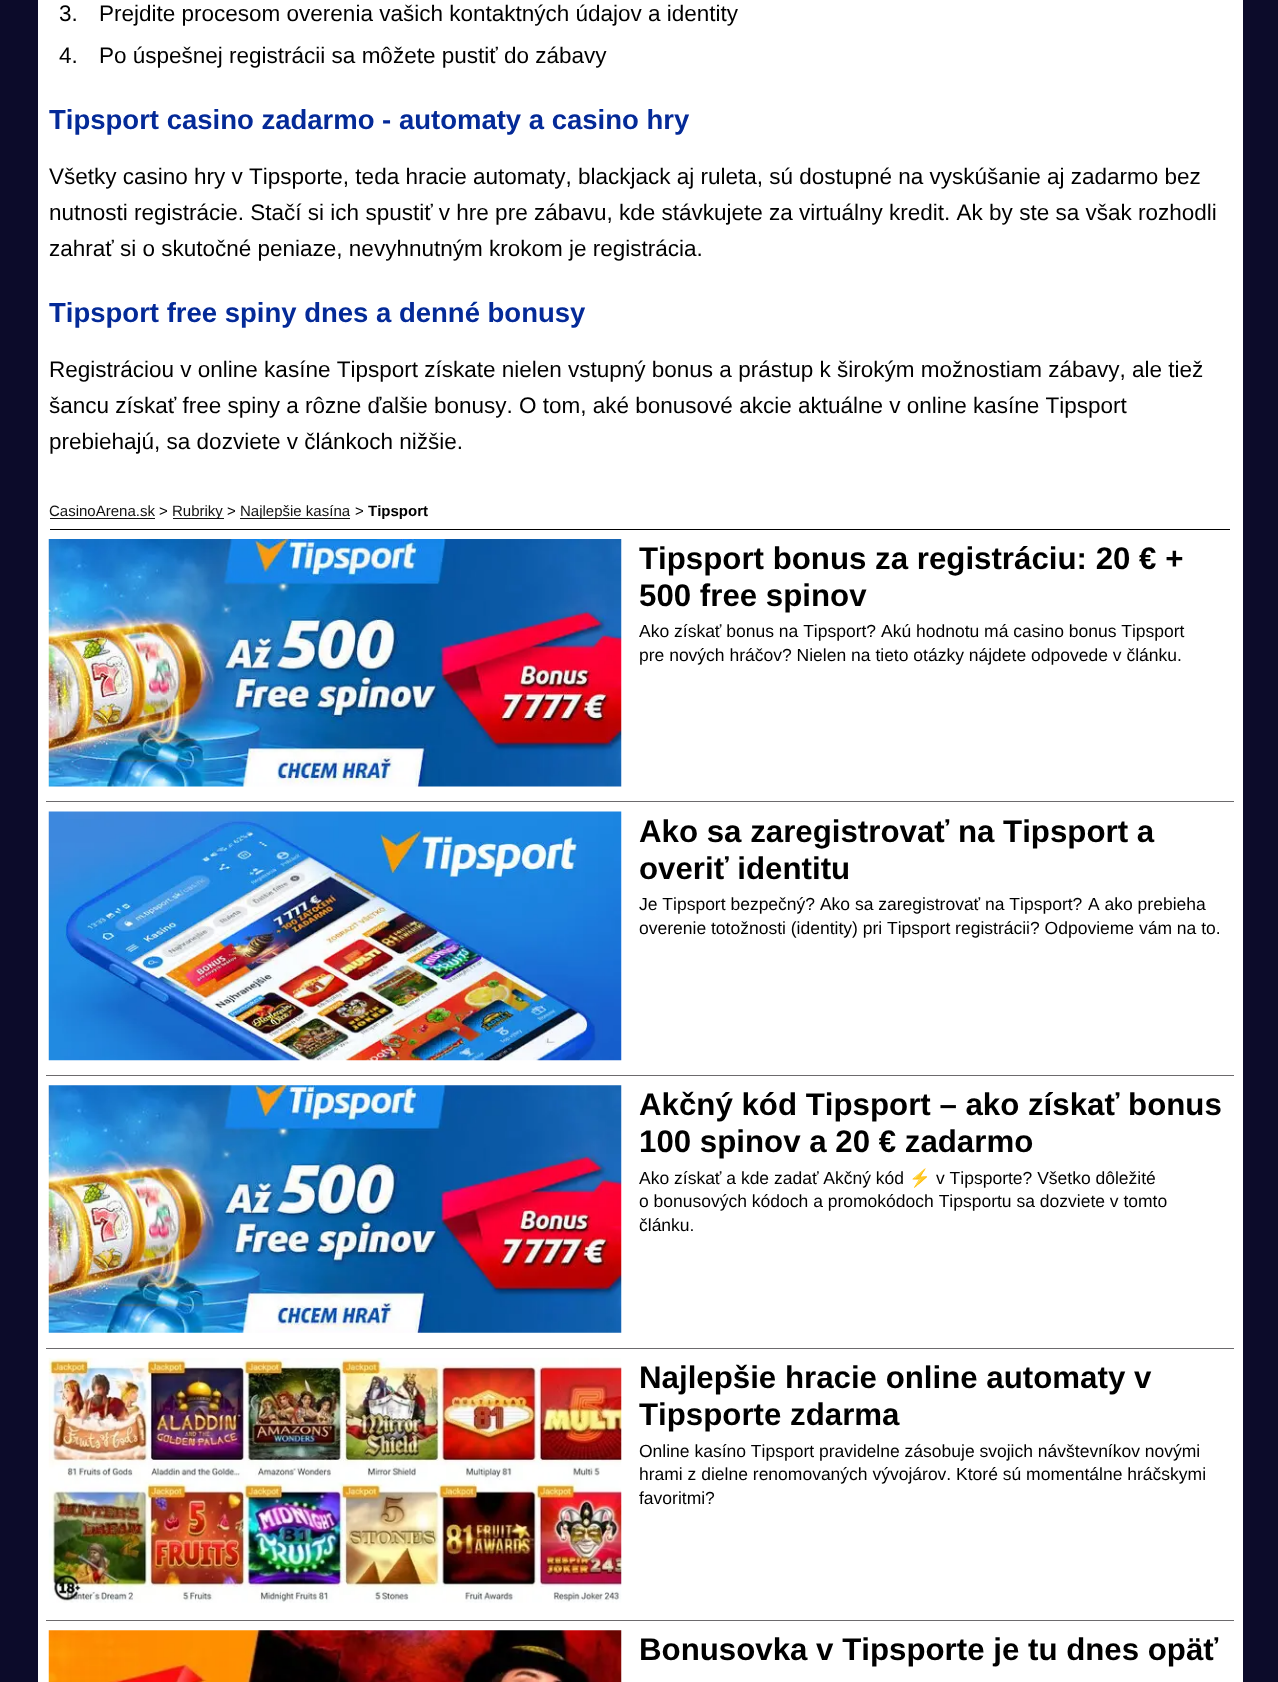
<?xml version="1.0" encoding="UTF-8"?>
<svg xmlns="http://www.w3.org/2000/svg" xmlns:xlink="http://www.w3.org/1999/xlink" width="1278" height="1682">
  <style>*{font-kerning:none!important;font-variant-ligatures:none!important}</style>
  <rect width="100%" height="100%" fill="#0c0b2a" />
  <rect x="38" width="1205" height="1682" fill="#ffffff" />
  <rect x="50" y="529" width="1180" height="1" fill="#000000" />
  <rect x="50" y="518" width="105" height="1" fill="#111111" />
  <rect x="173" y="518" width="51" height="1" fill="#111111" />
  <rect x="240" y="518" width="110" height="1" fill="#111111" />
  <rect x="46" y="801" width="1188" height="1" fill="#6c6a6d" />
  <image x="48" y="539" width="574" height="248" xlink:href="image1.png" />
  <rect x="46" y="1075" width="1188" height="1" fill="#6c6a6d" />
  <image x="48" y="811" width="574" height="250" xlink:href="image2.png" />
  <rect x="46" y="1348" width="1188" height="1" fill="#6c6a6d" />
  <image x="48" y="1085" width="574" height="248" xlink:href="image3.png" />
  <rect x="46" y="1620" width="1188" height="1" fill="#6c6a6d" />
  <image x="48" y="1357" width="574" height="246" xlink:href="image4.png" />
  <image x="48" y="1630" width="574" height="52" xlink:href="image5.png" />
  <text x="59" y="21" style="font-family: Liberation Sans; font-size: 22.5px; fill: #000000">3.</text>
  <text x="99" y="21" style="font-family: Liberation Sans; font-size: 22.5px; fill: #000000">Prejdite procesom overenia vašich kontaktných údajov a identity</text>
  <text x="59" y="63" style="font-family: Liberation Sans; font-size: 22.5px; fill: #000000">4.</text>
  <text x="99" y="63" style="font-family: Liberation Sans; font-size: 22.5px; fill: #000000">Po úspešnej registrácii sa môžete pustiť do zábavy</text>
  <text x="49" y="129" style="font-family: Liberation Sans; font-size: 27.5px; font-weight: bold; fill: #042a98">Tipsport casino zadarmo - automaty a casino hry</text>
  <text x="49" y="184" style="font-family: Liberation Sans; font-size: 22.5px; fill: #000000">Všetky casino hry v Tipsporte, teda hracie automaty, blackjack aj ruleta, sú dostupné na vyskúšanie aj zadarmo bez</text>
  <text x="49" y="220" style="font-family: Liberation Sans; font-size: 22.5px; fill: #000000">nutnosti registrácie. Stačí si ich spustiť v hre pre zábavu, kde stávkujete za virtuálny kredit. Ak by ste sa však rozhodli</text>
  <text x="49" y="256" style="font-family: Liberation Sans; font-size: 22.5px; fill: #000000">zahrať si o skutočné peniaze, nevyhnutným krokom je registrácia.</text>
  <text x="49" y="322" style="font-family: Liberation Sans; font-size: 27.5px; font-weight: bold; fill: #042a98">Tipsport free spiny dnes a denné bonusy</text>
  <text x="49" y="377" style="font-family: Liberation Sans; font-size: 22.5px; fill: #000000">Registráciou v online kasíne Tipsport získate nielen vstupný bonus a prástup k širokým možnostiam zábavy, ale tiež</text>
  <text x="49" y="413" style="font-family: Liberation Sans; font-size: 22.5px; fill: #000000">šancu získať free spiny a rôzne ďalšie bonusy. O tom, aké bonusové akcie aktuálne v online kasíne Tipsport</text>
  <text x="49" y="449" style="font-family: Liberation Sans; font-size: 22.5px; fill: #000000">prebiehajú, sa dozviete v článkoch nižšie.</text>
  <text x="49" y="516" style="font-family: Liberation Sans; font-size: 15px; fill: #111111">CasinoArena.sk</text>
  <text x="159" y="516" style="font-family: Liberation Sans; font-size: 15px; fill: #000000">&gt;</text>
  <text x="172" y="516" style="font-family: Liberation Sans; font-size: 15px; fill: #111111">Rubriky</text>
  <text x="227" y="516" style="font-family: Liberation Sans; font-size: 15px; fill: #000000">&gt;</text>
  <text x="240" y="516" style="font-family: Liberation Sans; font-size: 15px; fill: #111111">Najlepšie kasína</text>
  <text x="355" y="516" style="font-family: Liberation Sans; font-size: 15px; fill: #000000">&gt;</text>
  <text x="368" y="516" style="font-family: Liberation Sans; font-size: 15px; font-weight: bold; fill: #000000">Tipsport</text>
  <text x="639" y="569" style="font-family: Liberation Sans; font-size: 31.25px; font-weight: bold; fill: #000000">Tipsport bonus za registráciu: 20 € +</text>
  <text x="639" y="606" style="font-family: Liberation Sans; font-size: 31.25px; font-weight: bold; fill: #000000">500 free spinov</text>
  <text x="639" y="637" style="font-family: Liberation Sans; font-size: 17.5px; fill: #000000">Ako získať bonus na Tipsport? Akú hodnotu má casino bonus Tipsport</text>
  <text x="639" y="661" style="font-family: Liberation Sans; font-size: 17.5px; fill: #000000">pre nových hráčov? Nielen na tieto otázky nájdete odpovede v článku.</text>
  <text x="639" y="842" style="font-family: Liberation Sans; font-size: 31.25px; font-weight: bold; fill: #000000">Ako sa zaregistrovať na Tipsport a</text>
  <text x="639" y="879" style="font-family: Liberation Sans; font-size: 31.25px; font-weight: bold; fill: #000000">overiť identitu</text>
  <text x="639" y="910" style="font-family: Liberation Sans; font-size: 17.5px; fill: #000000">Je Tipsport bezpečný? Ako sa zaregistrovať na Tipsport?</text>
  <text x="1088" y="910" style="font-family: Liberation Sans; font-size: 17.5px; fill: #000000">A ako prebieha</text>
  <text x="639" y="934" style="font-family: Liberation Sans; font-size: 17.5px; fill: #000000">overenie totožnosti (identity) pri Tipsport registrácii? Odpovieme vám na to.</text>
  <text x="639" y="1115" style="font-family: Liberation Sans; font-size: 31.25px; font-weight: bold; fill: #000000">Akčný kód Tipsport – ako získať bonus</text>
  <text x="639" y="1152" style="font-family: Liberation Sans; font-size: 31.25px; font-weight: bold; fill: #000000">100 spinov a 20 € zadarmo</text>
  <text x="639" y="1184" style="font-family: Liberation Sans; font-size: 17.5px; fill: #000000">Ako získať a kde zadať Akčný kód</text>
  <text x="909" y="1184" style="font-family: Noto Color Emoji; font-size: 17.5px; fill: #000000">⚡</text>
  <text x="936" y="1184" style="font-family: Liberation Sans; font-size: 17.5px; fill: #000000">v Tipsporte? Všetko dôležité</text>
  <text x="639" y="1207" style="font-family: Liberation Sans; font-size: 17.5px; fill: #000000">o bonusových kódoch a promokódoch Tipsportu sa dozviete v tomto</text>
  <text x="639" y="1231" style="font-family: Liberation Sans; font-size: 17.5px; fill: #000000">článku.</text>
  <text x="639" y="1388" style="font-family: Liberation Sans; font-size: 31.25px; font-weight: bold; fill: #000000">Najlepšie hracie online automaty v</text>
  <text x="639" y="1425" style="font-family: Liberation Sans; font-size: 31.25px; font-weight: bold; fill: #000000">Tipsporte zdarma</text>
  <text x="639" y="1457" style="font-family: Liberation Sans; font-size: 17.5px; fill: #000000">Online kasíno Tipsport pravidelne zásobuje svojich návštevníkov novými</text>
  <text x="639" y="1480" style="font-family: Liberation Sans; font-size: 17.5px; fill: #000000">hrami z dielne renomovaných vývojárov. Ktoré sú momentálne hráčskymi</text>
  <text x="639" y="1504" style="font-family: Liberation Sans; font-size: 17.5px; fill: #000000">favoritmi?</text>
  <text x="639" y="1660" style="font-family: Liberation Sans; font-size: 31.25px; font-weight: bold; fill: #000000">Bonusovka v Tipsporte je tu dnes opäť</text>
</svg>
